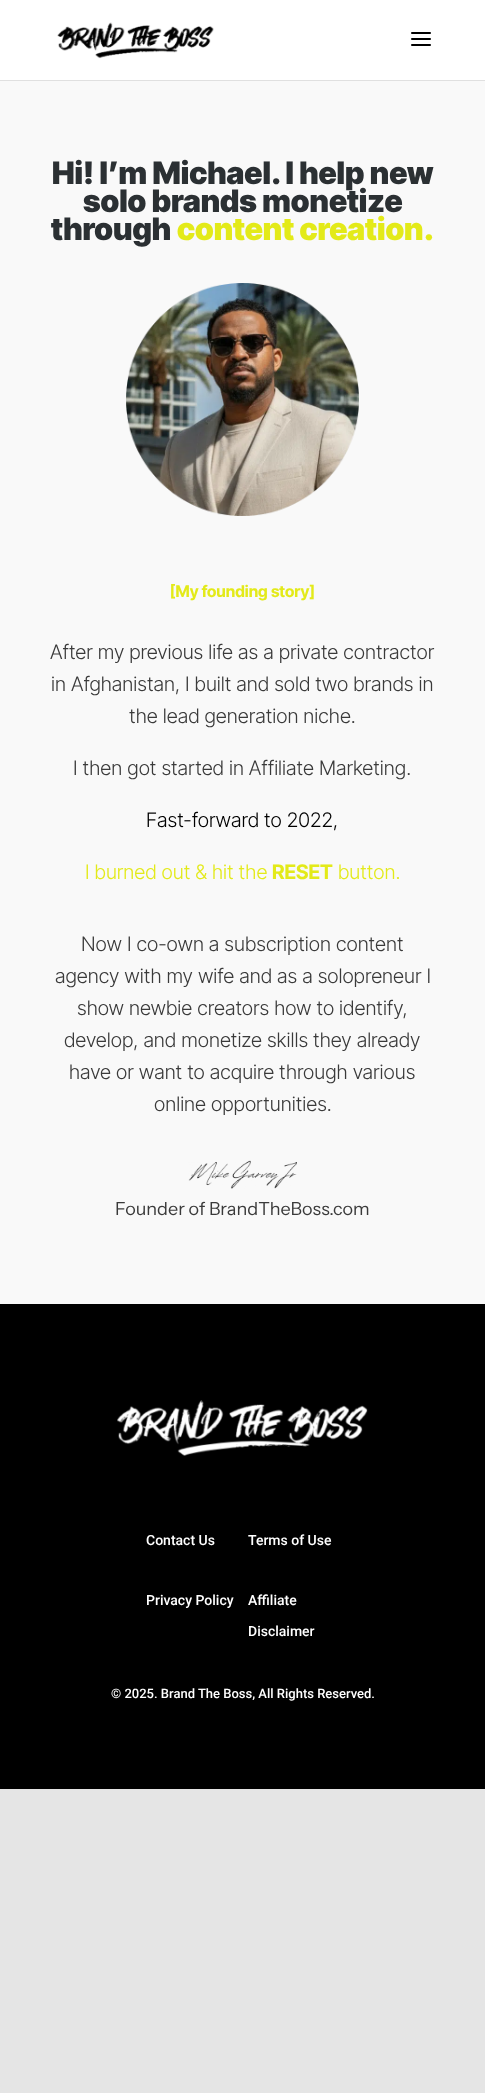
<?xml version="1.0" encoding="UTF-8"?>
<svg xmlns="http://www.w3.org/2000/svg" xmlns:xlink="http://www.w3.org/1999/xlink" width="485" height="2093">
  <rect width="100%" height="100%" fill="#e5e5e5" />
  <rect y="80" width="485" height="1" fill="#e0e0e0" />
  <rect width="485" height="80" fill="#ffffff" />
  <image x="57" y="22" width="157" height="37" xlink:href="image1.png" />
  <image x="411" y="32" width="20" height="14" xlink:href="image2.png" />
  <rect y="81" width="485" height="1223" fill="#f9f9f9" />
  <image x="126" y="283" width="233" height="233" xlink:href="image3.png" />
  <image x="188" y="1160" width="109" height="29" xlink:href="image4.png" />
  <rect y="1304" width="485" height="485" fill="#000000" />
  <image x="117" y="1400" width="251" height="56" xlink:href="image5.png" />
  <text x="52" y="184" style="font-family: Inter Tight; font-size: 31px; font-weight: 900; fill: #2b3033">Hi! I’m Michael. I help new</text>
  <text x="83" y="212" style="font-family: Inter Tight; font-size: 31px; font-weight: 900; fill: #2b3033">solo brands monetize</text>
  <text x="51" y="240" style="font-family: Inter Tight; font-size: 31px; font-weight: 900; fill: #2b3033">through</text>
  <text x="177" y="240" style="font-family: Inter Tight; font-size: 31px; font-weight: 900; fill: #e3ea19">content creation.</text>
  <text x="170" y="597" style="font-family: Inter Tight; font-size: 16px; font-weight: bold; fill: #e3ea19">[My founding story]</text>
  <text x="50" y="659" style="font-family: Inter Tight; font-size: 20px; font-weight: 300; fill: #3a3a3a">After my previous life as a private contractor</text>
  <text x="51" y="691" style="font-family: Inter Tight; font-size: 20px; font-weight: 300; fill: #3a3a3a">in Afghanistan, I built and sold two brands in</text>
  <text x="129" y="723" style="font-family: Inter Tight; font-size: 20px; font-weight: 300; fill: #3a3a3a">the lead generation niche.</text>
  <text x="73" y="775" style="font-family: Inter Tight; font-size: 20px; font-weight: 300; fill: #3a3a3a">I then got started in Affiliate Marketing.</text>
  <text x="146" y="827" style="font-family: Inter Tight; font-size: 20px; font-weight: 300; fill: #000000">Fast-forward to 2022,</text>
  <text x="85" y="879" style="font-family: Inter Tight; font-size: 20px; font-weight: 300; fill: #e3ea19">I burned out &amp; hit the</text>
  <text x="272" y="879" style="font-family: Inter Tight; font-size: 20px; font-weight: bold; fill: #e3ea19">RESET</text>
  <text x="338" y="879" style="font-family: Inter Tight; font-size: 20px; font-weight: 300; fill: #e3ea19">button.</text>
  <text x="81" y="951" style="font-family: Inter Tight; font-size: 20px; font-weight: 300; fill: #3a3a3a">Now I co-own a subscription content</text>
  <text x="55" y="983" style="font-family: Inter Tight; font-size: 20px; font-weight: 300; fill: #3a3a3a">agency with my wife and as a solopreneur I</text>
  <text x="77" y="1015" style="font-family: Inter Tight; font-size: 20px; font-weight: 300; fill: #3a3a3a">show newbie creators how to identify,</text>
  <text x="64" y="1047" style="font-family: Inter Tight; font-size: 20px; font-weight: 300; fill: #3a3a3a">develop, and monetize skills they already</text>
  <text x="69" y="1079" style="font-family: Inter Tight; font-size: 20px; font-weight: 300; fill: #3a3a3a">have or want to acquire through various</text>
  <text x="154" y="1111" style="font-family: Inter Tight; font-size: 20px; font-weight: 300; fill: #3a3a3a">online opportunities.</text>
  <text x="115" y="1215" style="font-family: Instrument Sans; font-size: 18px; fill: #3a3a3a">Founder of BrandTheBoss.com</text>
  <text x="146" y="1545" style="font-family: Roboto; font-size: 14px; font-weight: 500; fill: #ffffff">Contact Us</text>
  <text x="248" y="1545" style="font-family: Roboto; font-size: 14px; font-weight: 500; fill: #ffffff">Terms of Use</text>
  <text x="146" y="1605" style="font-family: Roboto; font-size: 14px; font-weight: 500; fill: #ffffff">Privacy Policy</text>
  <text x="248" y="1605" style="font-family: Roboto; font-size: 14px; font-weight: 500; fill: #ffffff">Affiliate</text>
  <text x="248" y="1636" style="font-family: Roboto; font-size: 14px; font-weight: 500; fill: #ffffff">Disclaimer</text>
  <text x="111" y="1698" style="font-family: Roboto; font-size: 13px; font-weight: 500; fill: #ffffff">© 2025. Brand The Boss, All Rights Reserved.</text>
</svg>
